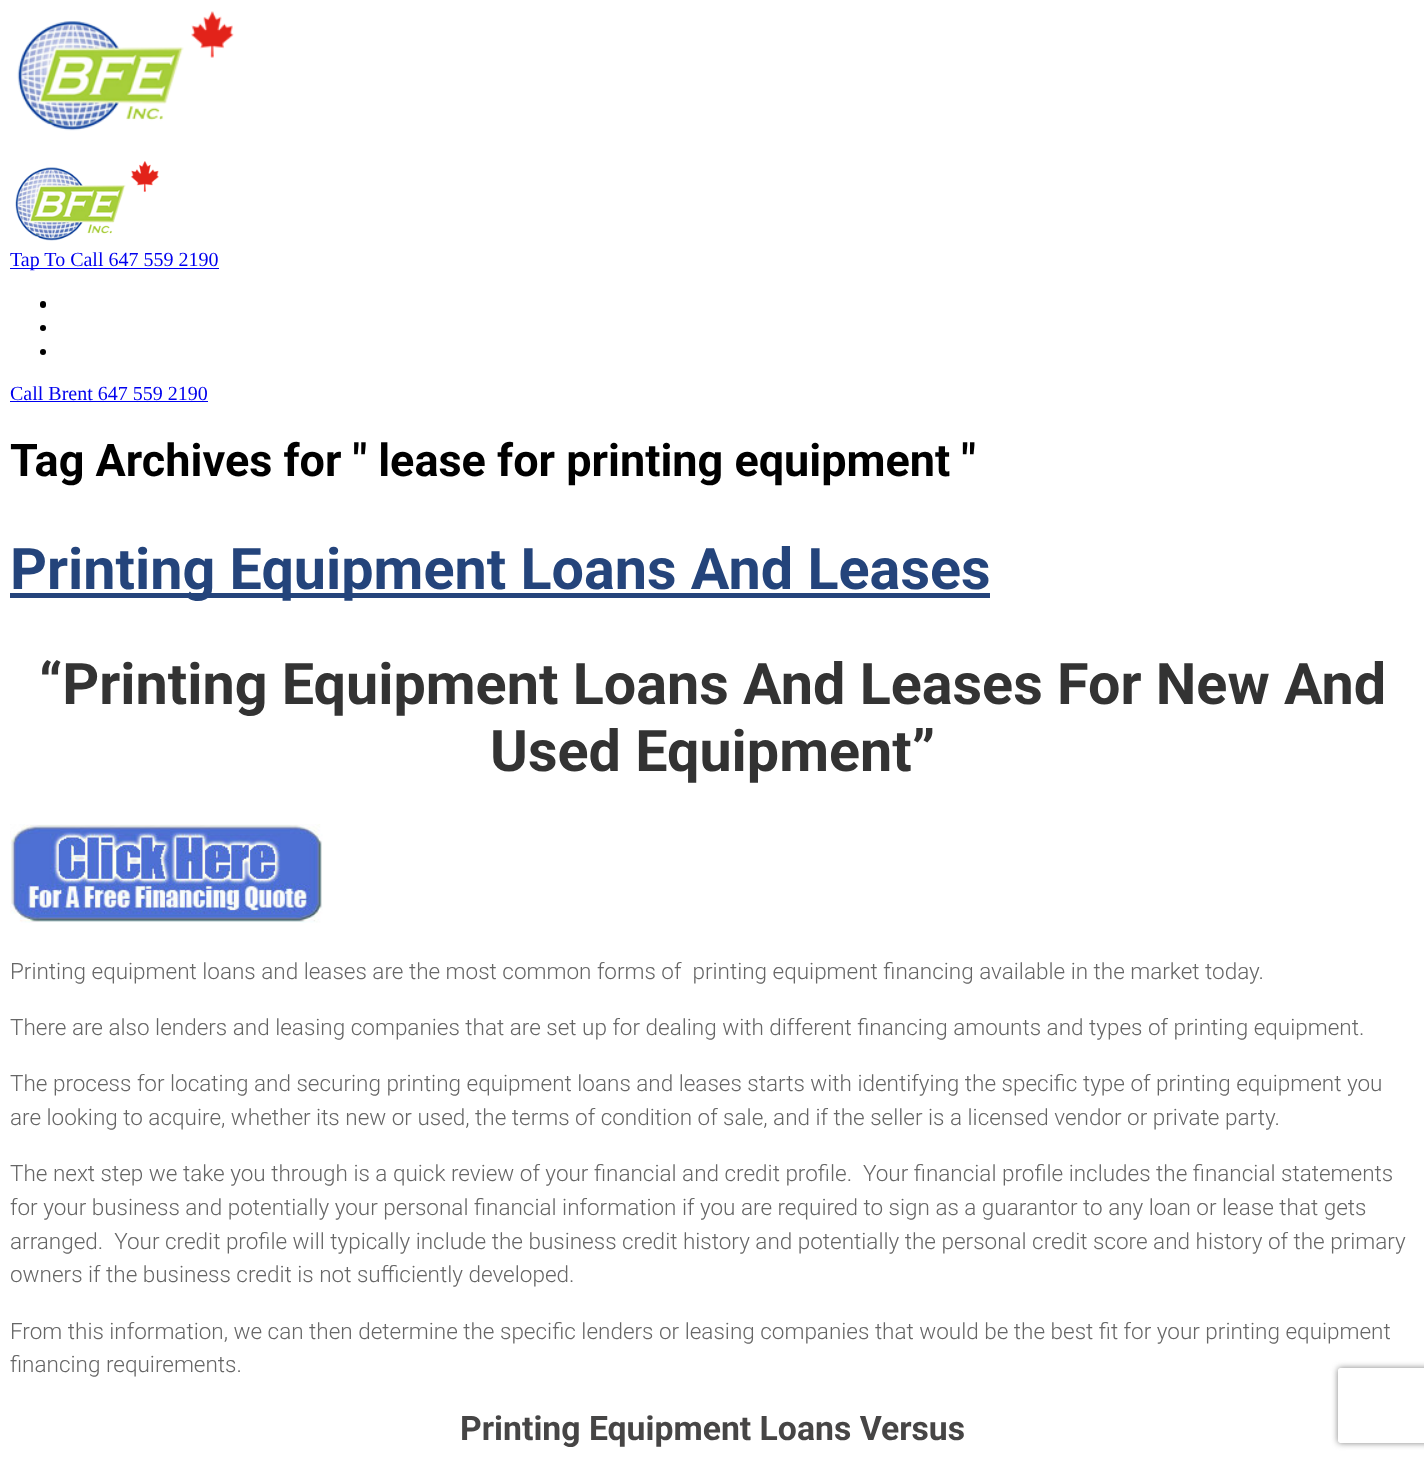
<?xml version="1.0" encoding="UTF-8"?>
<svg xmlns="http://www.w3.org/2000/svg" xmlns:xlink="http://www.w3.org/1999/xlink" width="1424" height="1460">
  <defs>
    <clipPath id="clip1"><path d="M 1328 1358 h 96 v 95 h -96 z m 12.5 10 h 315 c 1.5 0 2.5 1 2.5 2.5 v 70 c 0 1.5 -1 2.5 -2.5 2.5 h -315 c -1.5 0 -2.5 -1 -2.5 -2.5 v -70 c 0 -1.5 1 -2.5 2.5 -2.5 z" clip-rule="evenodd" /></clipPath>
  </defs>
  <rect width="100%" height="100%" fill="#ffffff" />
  <image x="17" y="11" width="217" height="120" xlink:href="image1.png" />
  <image x="15" y="161" width="144" height="80" xlink:href="image2.png" />
  <rect x="10" y="268" width="209" height="1" fill="#0000ee" />
  <rect x="40" y="301" width="6" height="7" rx="3" fill="#000000" />
  <circle cx="43" cy="328" r="3" fill="#000000" />
  <circle cx="43" cy="352" r="3" fill="#000000" />
  <rect x="10" y="401" width="198" height="1" fill="#0000ee" />
  <rect x="10" y="593" width="980" height="5" fill="#24447b" />
  <image x="10" y="824" width="313" height="99" xlink:href="image3.png" />
  <g clip-path="url(#clip1)">
    <rect x="1338" y="1368" width="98" height="75" rx="2.5" fill="#808080" filter="blur(3px)" />
  </g>
  <text x="10" y="266" style="font-family: Liberation Serif; font-size: 20px; fill: #0000ee">Tap To Call 647 559 2190</text>
  <text x="10" y="400" style="font-family: Liberation Serif; font-size: 20px; fill: #0000ee">Call Brent 647 559 2190</text>
  <text x="10" y="476" style="font-family: Roboto; font-size: 45px; font-weight: bold; fill: #000000">Tag Archives for " lease for printing equipment "</text>
  <text x="10" y="589" style="font-family: Roboto; font-size: 57.5px; font-weight: bold; fill: #24447b">Printing Equipment Loans And Leases</text>
  <text x="39" y="704" style="font-family: Roboto; font-size: 57.5px; font-weight: bold; fill: #333333">“Printing Equipment Loans And Leases For New And</text>
  <text x="490" y="771" style="font-family: Roboto; font-size: 57.5px; font-weight: bold; fill: #333333">Used Equipment”</text>
  <text x="10" y="979" style="font-family: Roboto; font-size: 22.5px; font-weight: 300; fill: #666666" xml:space="preserve">Printing equipment loans and leases are the most common forms of  printing equipment financing available in the market today.</text>
  <text x="10" y="1035" style="font-family: Roboto; font-size: 22.5px; font-weight: 300; fill: #666666">There are also lenders and leasing companies that are set up for dealing with different financing amounts and types of printing equipment.</text>
  <text x="10" y="1091" style="font-family: Roboto; font-size: 22.5px; font-weight: 300; fill: #666666">The process for locating and securing printing equipment loans and leases starts with identifying the specific type of printing equipment you</text>
  <text x="10" y="1125" style="font-family: Roboto; font-size: 22.5px; font-weight: 300; fill: #666666">are looking to acquire, whether its new or used, the terms of condition of sale, and if the seller is a licensed vendor or private party.</text>
  <text x="10" y="1181" style="font-family: Roboto; font-size: 22.5px; font-weight: 300; fill: #666666" xml:space="preserve">The next step we take you through is a quick review of your financial and credit profile.  Your financial profile includes the financial statements</text>
  <text x="10" y="1215" style="font-family: Roboto; font-size: 22.5px; font-weight: 300; fill: #666666">for your business and potentially your personal financial information if you are required to sign as a guarantor to any loan or lease that gets</text>
  <text x="10" y="1249" style="font-family: Roboto; font-size: 22.5px; font-weight: 300; fill: #666666" xml:space="preserve">arranged.  Your credit profile will typically include the business credit history and potentially the personal credit score and history of the primary</text>
  <text x="10" y="1282" style="font-family: Roboto; font-size: 22.5px; font-weight: 300; fill: #666666">owners if the business credit is not sufficiently developed.</text>
  <text x="10" y="1339" style="font-family: Roboto; font-size: 22.5px; font-weight: 300; fill: #666666">From this information, we can then determine the specific lenders or leasing companies that would be the best fit for your printing equipment</text>
  <text x="10" y="1372" style="font-family: Roboto; font-size: 22.5px; font-weight: 300; fill: #666666">financing requirements.</text>
  <text x="460" y="1440" style="font-family: Roboto; font-size: 33.75px; font-weight: bold; fill: #464545">Printing Equipment Loans Versus</text>
</svg>
